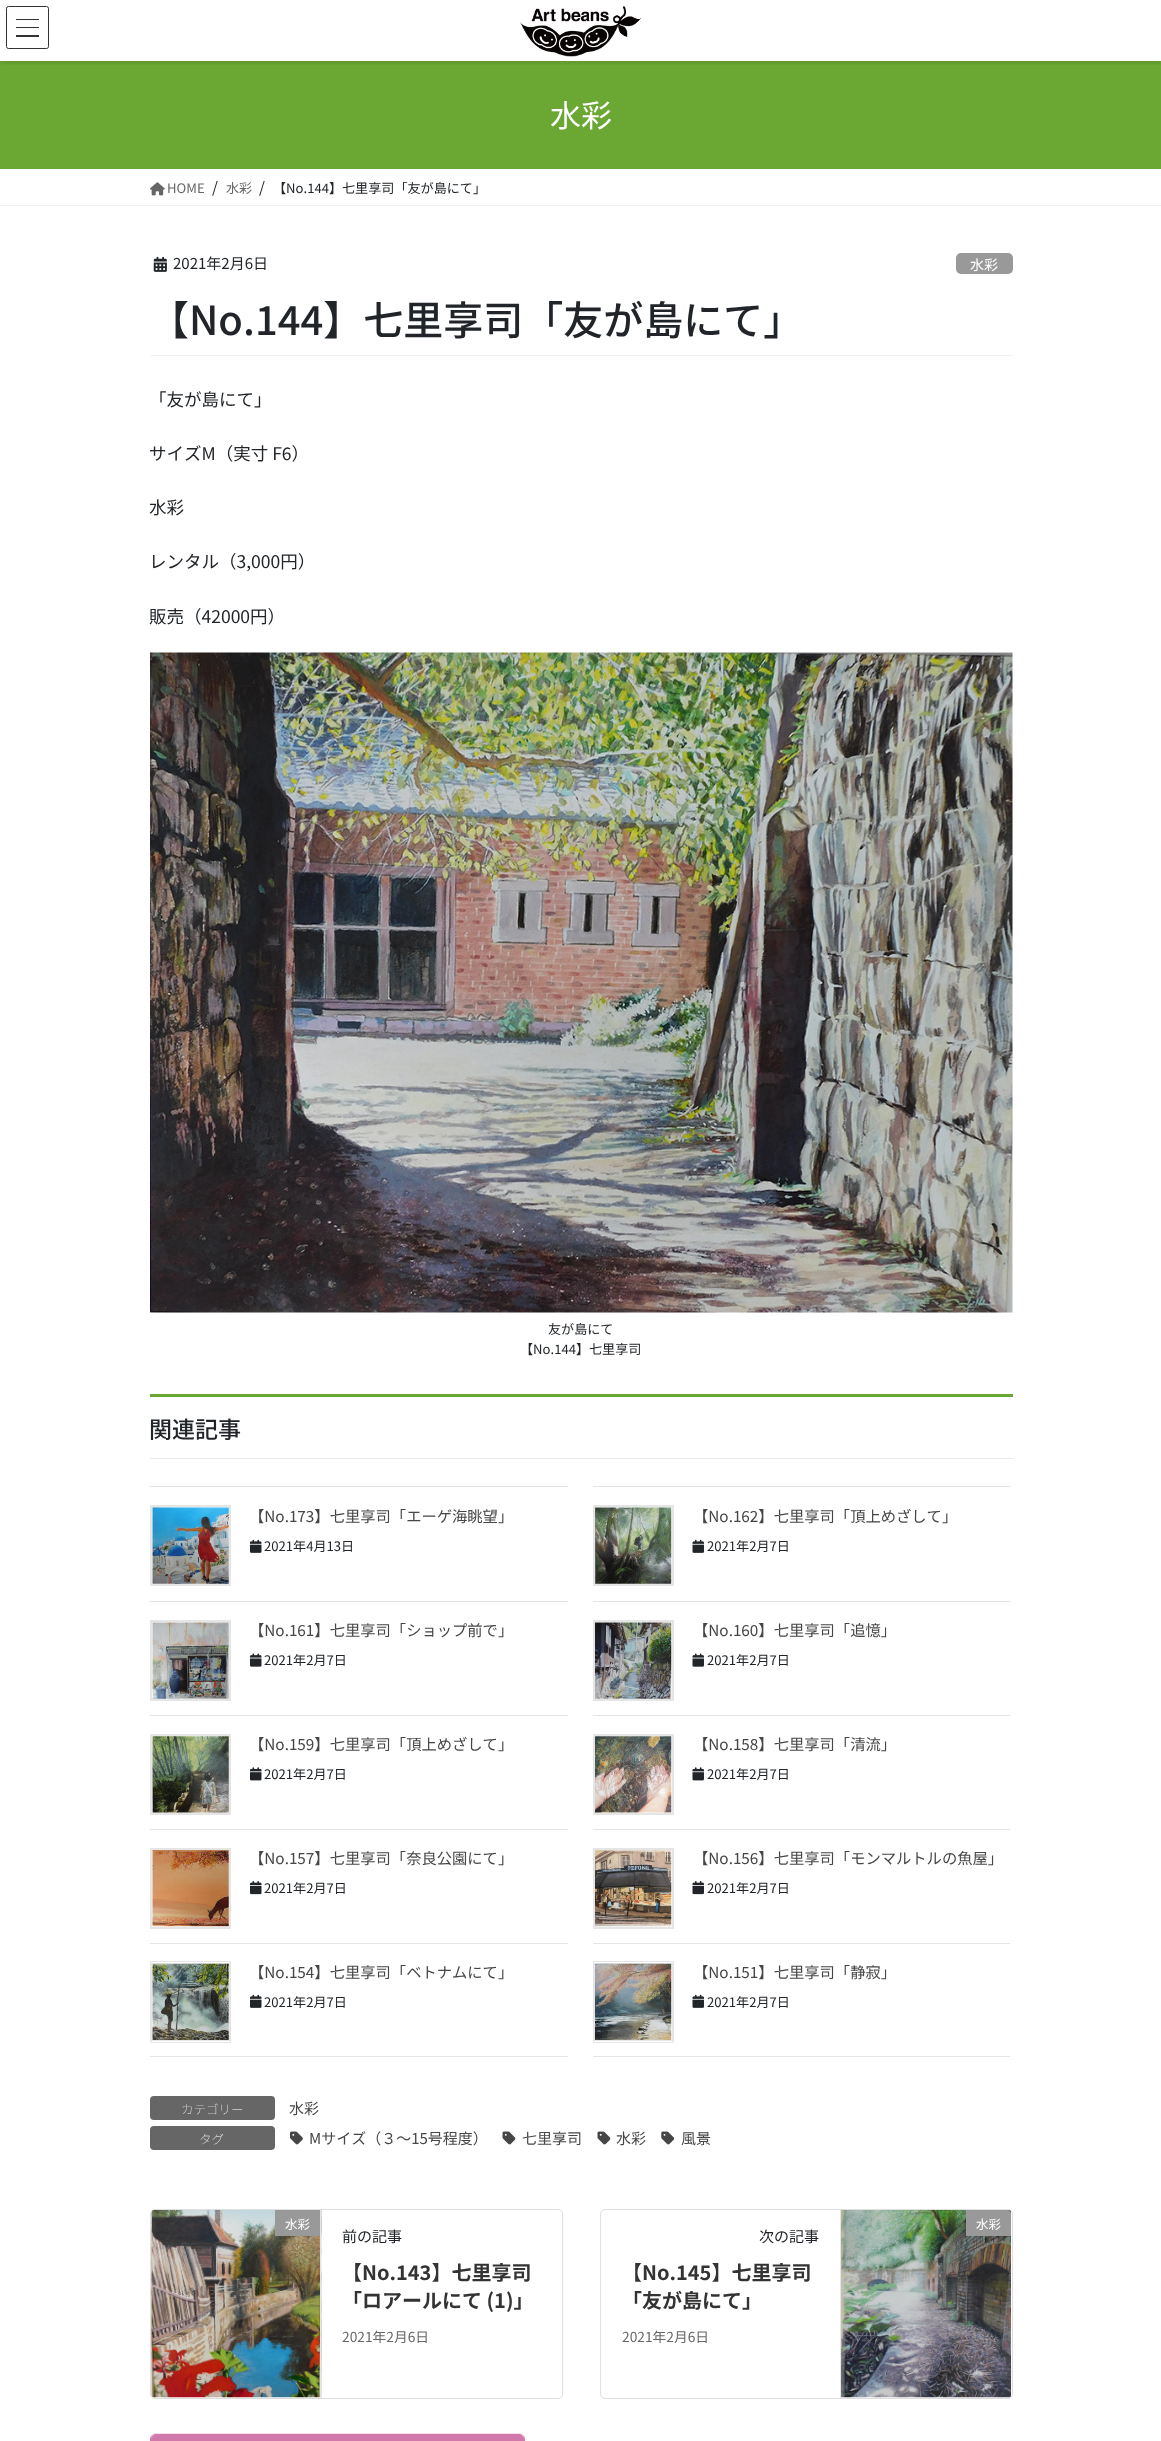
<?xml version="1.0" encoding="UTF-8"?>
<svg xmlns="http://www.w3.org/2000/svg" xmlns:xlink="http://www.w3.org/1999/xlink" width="1161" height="2441">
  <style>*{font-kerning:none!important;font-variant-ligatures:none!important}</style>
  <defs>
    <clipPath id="clip1"><rect x="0" y="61" width="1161" height="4" /></clipPath>
  </defs>
  <rect width="100%" height="100%" fill="#ffffff" />
  <rect y="61" width="1161" height="108" fill="#6aa733" />
  <g clip-path="url(#clip1)">
    <rect y="1" width="1161" height="62" fill="#000000" fill-opacity="0.1" filter="blur(2px)" />
  </g>
  <image x="520" y="6" width="121" height="51" xlink:href="image1.png" />
  <rect x="16" y="19" width="23" height="1" fill="#333333" />
  <rect x="16" y="27" width="23" height="1" fill="#333333" />
  <rect x="16" y="35" width="23" height="2" fill="#333333" />
  <rect x="6.5" y="6.5" width="42" height="42" rx="2" fill="none" stroke="#333333" />
  <rect y="205" width="1161" height="1" fill="#f2f2f2" />
  <image x="150" y="182" width="15" height="14" xlink:href="image2.png" />
  <rect x="150" y="355" width="863" height="1" fill="#f2f2f2" />
  <image x="153" y="256" width="14" height="16" xlink:href="image3.png" />
  <rect x="956" y="253" width="57" height="21" rx="5" fill="#999999" />
  <image x="150" y="652" width="863" height="661" xlink:href="image4.png" />
  <rect x="150" y="1394" width="863" height="3" fill="#6aa733" />
  <rect x="150" y="1458" width="863" height="1" fill="#e9e9e9" />
  <rect x="150" y="1486" width="418" height="1" fill="#e5e5e5" />
  <rect x="150" y="1601" width="418" height="1" fill="#e5e5e5" />
  <rect x="150.5" y="1505.5" width="80" height="80" fill="none" stroke="#e5e5e5" />
  <rect x="151.5" y="1506.5" width="78" height="78" fill="none" stroke="#e5e5e5" />
  <image x="152" y="1507" width="77" height="77" xlink:href="image5.png" />
  <image x="250" y="1539" width="12" height="14" xlink:href="image6.png" />
  <rect x="593" y="1486" width="417" height="1" fill="#e5e5e5" />
  <rect x="593" y="1601" width="417" height="1" fill="#e5e5e5" />
  <rect x="593.5" y="1505.5" width="80" height="80" fill="none" stroke="#e5e5e5" />
  <rect x="594.5" y="1506.5" width="78" height="78" fill="none" stroke="#e5e5e5" />
  <image x="595" y="1507" width="77" height="77" xlink:href="image7.png" />
  <image x="692" y="1539" width="12" height="14" xlink:href="image8.png" />
  <rect x="150" y="1715" width="418" height="1" fill="#e5e5e5" />
  <rect x="150.5" y="1620.5" width="80" height="80" fill="none" stroke="#e5e5e5" />
  <rect x="151.5" y="1621.5" width="78" height="78" fill="none" stroke="#e5e5e5" />
  <image x="152" y="1622" width="77" height="77" xlink:href="image9.png" />
  <image x="250" y="1653" width="12" height="14" xlink:href="image10.png" />
  <rect x="593" y="1715" width="417" height="1" fill="#e5e5e5" />
  <rect x="593.5" y="1620.5" width="80" height="80" fill="none" stroke="#e5e5e5" />
  <rect x="594.5" y="1621.5" width="78" height="78" fill="none" stroke="#e5e5e5" />
  <image x="595" y="1622" width="77" height="77" xlink:href="image11.png" />
  <image x="692" y="1653" width="12" height="14" xlink:href="image12.png" />
  <rect x="150" y="1829" width="418" height="1" fill="#e5e5e5" />
  <rect x="150.5" y="1734.5" width="80" height="80" fill="none" stroke="#e5e5e5" />
  <rect x="151.5" y="1735.5" width="78" height="78" fill="none" stroke="#e5e5e5" />
  <image x="152" y="1736" width="77" height="77" xlink:href="image13.png" />
  <image x="250" y="1767" width="12" height="14" xlink:href="image14.png" />
  <rect x="593" y="1829" width="417" height="1" fill="#e5e5e5" />
  <rect x="593.5" y="1734.5" width="80" height="80" fill="none" stroke="#e5e5e5" />
  <rect x="594.5" y="1735.5" width="78" height="78" fill="none" stroke="#e5e5e5" />
  <image x="595" y="1736" width="77" height="77" xlink:href="image15.png" />
  <image x="692" y="1767" width="12" height="14" xlink:href="image16.png" />
  <rect x="150" y="1943" width="418" height="1" fill="#e5e5e5" />
  <rect x="150.5" y="1848.5" width="80" height="80" fill="none" stroke="#e5e5e5" />
  <rect x="151.5" y="1849.5" width="78" height="78" fill="none" stroke="#e5e5e5" />
  <image x="152" y="1850" width="77" height="77" xlink:href="image17.png" />
  <image x="250" y="1881" width="12" height="14" xlink:href="image18.png" />
  <rect x="593" y="1943" width="417" height="1" fill="#e5e5e5" />
  <rect x="593.5" y="1848.5" width="80" height="80" fill="none" stroke="#e5e5e5" />
  <rect x="594.5" y="1849.5" width="78" height="78" fill="none" stroke="#e5e5e5" />
  <image x="595" y="1850" width="77" height="77" xlink:href="image19.png" />
  <image x="692" y="1881" width="12" height="14" xlink:href="image20.png" />
  <rect x="150" y="2056" width="418" height="1" fill="#e5e5e5" />
  <rect x="150.5" y="1961.5" width="80" height="81" fill="none" stroke="#e5e5e5" />
  <rect x="151.5" y="1963.5" width="78" height="77" fill="none" stroke="#e5e5e5" />
  <image x="152" y="1963" width="77" height="77" xlink:href="image21.png" />
  <image x="250" y="1994" width="12" height="14" xlink:href="image6.png" />
  <rect x="593" y="2056" width="417" height="1" fill="#e5e5e5" />
  <rect x="593.5" y="1961.5" width="80" height="81" fill="none" stroke="#e5e5e5" />
  <rect x="594.5" y="1963.5" width="78" height="77" fill="none" stroke="#e5e5e5" />
  <image x="595" y="1963" width="77" height="77" xlink:href="image22.png" />
  <image x="692" y="1994" width="12" height="14" xlink:href="image8.png" />
  <rect x="150" y="2096" width="125" height="24" rx="4" fill="#666666" />
  <rect x="150" y="2126" width="125" height="24" rx="4" fill="#666666" />
  <image x="290" y="2131" width="13" height="14" xlink:href="image23.png" />
  <image x="502" y="2131" width="14" height="14" xlink:href="image24.png" />
  <image x="597" y="2131" width="14" height="14" xlink:href="image24.png" />
  <image x="661" y="2131" width="13" height="14" xlink:href="image25.png" />
  <rect x="150.5" y="2209.5" width="412" height="189" rx="4.5" fill="none" stroke="#dfdfdf" />
  <image x="151" y="2210" width="171" height="188" xlink:href="image26.png" />
  <rect x="320" y="2210" width="1" height="188" fill="#e5e5e5" />
  <rect x="275" y="2210" width="45" height="26" fill="#999999" />
  <rect x="600.5" y="2209.5" width="412" height="189" rx="4.5" fill="none" stroke="#dfdfdf" />
  <image x="841" y="2210" width="171" height="188" xlink:href="image27.png" />
  <rect x="840" y="2210" width="1" height="188" fill="#e5e5e5" />
  <path d="M 966 2210 h 42 c 1.5 0 3 1.5 3 3 v 23 h -45 z" fill="#999999" />
  <image x="150" y="2433" width="375" height="8" xlink:href="image28.png" />
  <text x="550" y="127" style="font-family: Noto Sans JP; font-size: 31px; fill: #ffffff">水彩</text>
  <text x="167" y="193" style="font-family: Noto Sans JP; font-size: 13.1px; fill: #666666">HOME</text>
  <text x="212" y="193" style="font-family: Noto Sans JP; font-size: 15px; fill: #212529">/</text>
  <text x="226" y="193" style="font-family: Noto Sans JP; font-size: 13.1px; fill: #666666">水彩</text>
  <text x="259" y="193" style="font-family: Noto Sans JP; font-size: 15px; fill: #212529">/</text>
  <text x="273" y="193" style="font-family: Noto Sans JP; font-size: 13.1px; fill: #212529">【No.144】七里享司「友が島にて」</text>
  <text x="173" y="269" style="font-family: Noto Sans JP; font-size: 15px; fill: #212529">2021年2月6日</text>
  <text x="970" y="270" style="font-family: Noto Sans JP; font-size: 14px; fill: #ffffff">水彩</text>
  <text x="149" y="335" style="font-family: Noto Sans JP; font-size: 40px; font-weight: 500; fill: #212529">【No.144】七里享司「友が島にて」</text>
  <text x="149" y="406" style="font-family: Noto Sans JP; font-size: 17.5px; fill: #212529">「友が島にて」</text>
  <text x="149" y="460" style="font-family: Noto Sans JP; font-size: 17.5px; fill: #212529">サイズM（実寸 F6）</text>
  <text x="149" y="514" style="font-family: Noto Sans JP; font-size: 17.5px; fill: #212529">水彩</text>
  <text x="149" y="568" style="font-family: Noto Sans JP; font-size: 17.5px; fill: #212529">レンタル（3,000円）</text>
  <text x="149" y="623" style="font-family: Noto Sans JP; font-size: 17.5px; fill: #212529">販売（42000円）</text>
  <text x="548" y="1334" style="font-family: Noto Sans JP; font-size: 13.1px; fill: #212529">友が島にて</text>
  <text x="520" y="1354" style="font-family: Noto Sans JP; font-size: 13.1px; fill: #212529">【No.144】七里享司</text>
  <text x="149" y="1438" style="font-family: Noto Sans JP; font-size: 23px; font-weight: 500; fill: #212529">関連記事</text>
  <text x="249" y="1522" style="font-family: Noto Sans JP; font-size: 15.3px; fill: #464646">【No.173】七里享司「エーゲ海眺望」</text>
  <text x="264" y="1551" style="font-family: Noto Sans JP; font-size: 13.1px; fill: #212529">2021年4月13日</text>
  <text x="693" y="1522" style="font-family: Noto Sans JP; font-size: 15.3px; fill: #464646">【No.162】七里享司「頂上めざして」</text>
  <text x="707" y="1551" style="font-family: Noto Sans JP; font-size: 13.1px; fill: #212529">2021年2月7日</text>
  <text x="249" y="1636" style="font-family: Noto Sans JP; font-size: 15.3px; fill: #464646">【No.161】七里享司「ショップ前で」</text>
  <text x="264" y="1665" style="font-family: Noto Sans JP; font-size: 13.1px; fill: #212529">2021年2月7日</text>
  <text x="693" y="1636" style="font-family: Noto Sans JP; font-size: 15.3px; fill: #464646">【No.160】七里享司「追憶」</text>
  <text x="707" y="1665" style="font-family: Noto Sans JP; font-size: 13.1px; fill: #212529">2021年2月7日</text>
  <text x="249" y="1750" style="font-family: Noto Sans JP; font-size: 15.3px; fill: #464646">【No.159】七里享司「頂上めざして」</text>
  <text x="264" y="1779" style="font-family: Noto Sans JP; font-size: 13.1px; fill: #212529">2021年2月7日</text>
  <text x="693" y="1750" style="font-family: Noto Sans JP; font-size: 15.3px; fill: #464646">【No.158】七里享司「清流」</text>
  <text x="707" y="1779" style="font-family: Noto Sans JP; font-size: 13.1px; fill: #212529">2021年2月7日</text>
  <text x="249" y="1864" style="font-family: Noto Sans JP; font-size: 15.3px; fill: #464646">【No.157】七里享司「奈良公園にて」</text>
  <text x="264" y="1893" style="font-family: Noto Sans JP; font-size: 13.1px; fill: #212529">2021年2月7日</text>
  <text x="693" y="1864" style="font-family: Noto Sans JP; font-size: 15.3px; fill: #464646">【No.156】七里享司「モンマルトルの魚屋」</text>
  <text x="707" y="1893" style="font-family: Noto Sans JP; font-size: 13.1px; fill: #212529">2021年2月7日</text>
  <text x="249" y="1978" style="font-family: Noto Sans JP; font-size: 15.3px; fill: #464646">【No.154】七里享司「ベトナムにて」</text>
  <text x="264" y="2007" style="font-family: Noto Sans JP; font-size: 13.1px; fill: #212529">2021年2月7日</text>
  <text x="693" y="1978" style="font-family: Noto Sans JP; font-size: 15.3px; fill: #464646">【No.151】七里享司「静寂」</text>
  <text x="707" y="2007" style="font-family: Noto Sans JP; font-size: 13.1px; fill: #212529">2021年2月7日</text>
  <text x="181" y="2114" style="font-family: Noto Sans JP; font-size: 12.5px; font-weight: 100; fill: #ffffff">カテゴリー</text>
  <text x="289" y="2114" style="font-family: Noto Sans JP; font-size: 15px; fill: #464646">水彩</text>
  <text x="199" y="2144" style="font-family: Noto Sans JP; font-size: 12.5px; font-weight: 100; fill: #ffffff">タグ</text>
  <text x="309" y="2144" style="font-family: Noto Sans JP; font-size: 15px; fill: #464646">Mサイズ（３～15号程度）</text>
  <text x="522" y="2144" style="font-family: Noto Sans JP; font-size: 15px; fill: #464646">七里享司</text>
  <text x="616" y="2144" style="font-family: Noto Sans JP; font-size: 15px; fill: #464646">水彩</text>
  <text x="681" y="2144" style="font-family: Noto Sans JP; font-size: 15px; fill: #464646">風景</text>
  <text x="285" y="2229" style="font-family: Noto Sans JP; font-size: 12.5px; fill: #ffffff">水彩</text>
  <text x="342" y="2242" style="font-family: Noto Sans JP; font-size: 15px; fill: #212529">前の記事</text>
  <text x="342" y="2280" style="font-family: Noto Sans JP; font-size: 20px; font-weight: bold; fill: #333333">【No.143】七里享司</text>
  <text x="342" y="2308" style="font-family: Noto Sans JP; font-size: 20px; font-weight: bold; fill: #333333">「ロアールにて (1)」</text>
  <text x="342" y="2342" style="font-family: Noto Sans JP; font-size: 13.75px; fill: #666666">2021年2月6日</text>
  <text x="976" y="2229" style="font-family: Noto Sans JP; font-size: 12.5px; fill: #ffffff">水彩</text>
  <text x="759" y="2242" style="font-family: Noto Sans JP; font-size: 15px; fill: #212529">次の記事</text>
  <text x="622" y="2280" style="font-family: Noto Sans JP; font-size: 20px; font-weight: bold; fill: #333333">【No.145】七里享司</text>
  <text x="622" y="2308" style="font-family: Noto Sans JP; font-size: 20px; font-weight: bold; fill: #333333">「友が島にて」</text>
  <text x="622" y="2342" style="font-family: Noto Sans JP; font-size: 13.75px; fill: #666666">2021年2月6日</text>
</svg>
